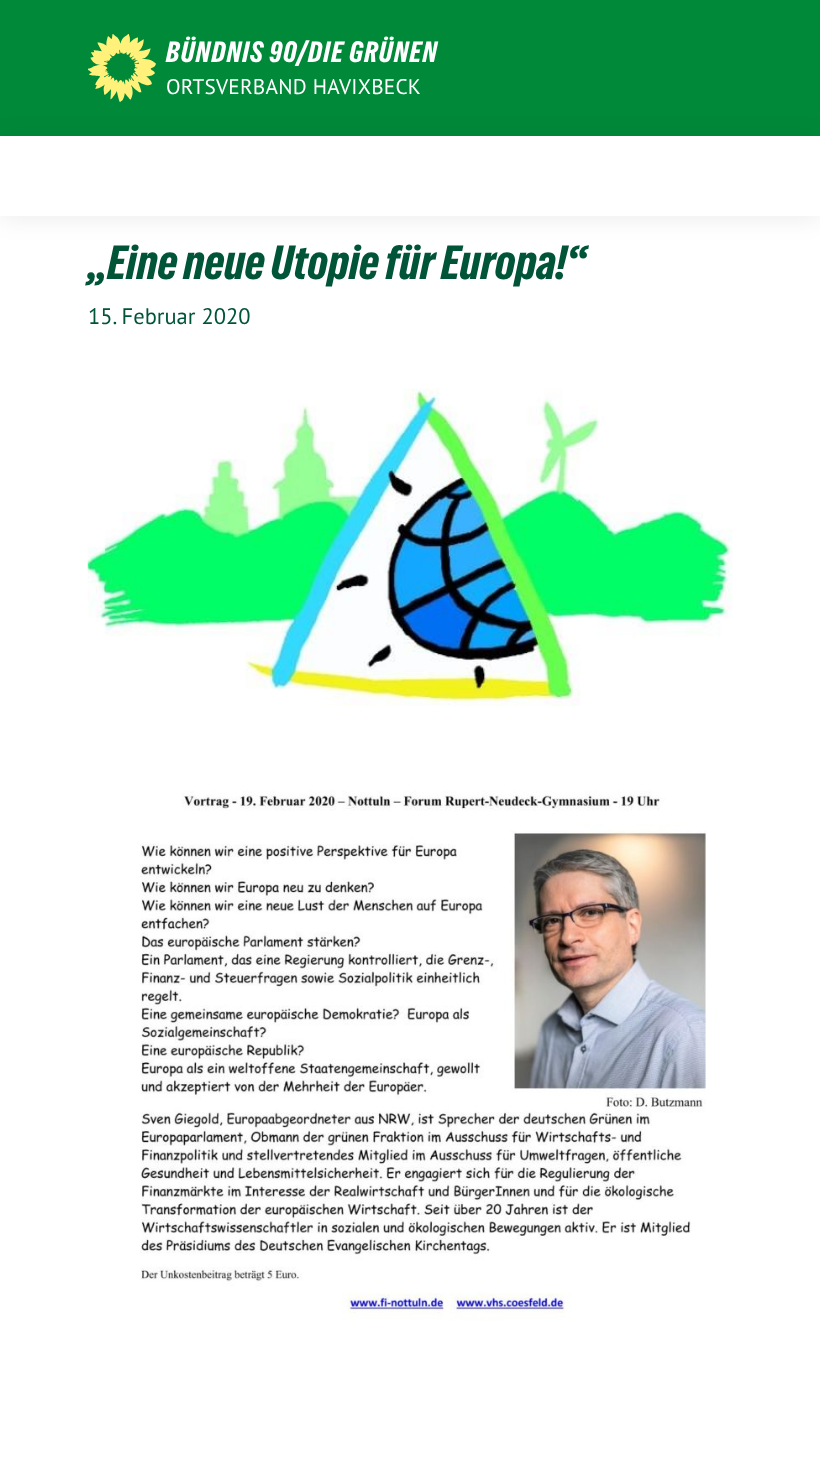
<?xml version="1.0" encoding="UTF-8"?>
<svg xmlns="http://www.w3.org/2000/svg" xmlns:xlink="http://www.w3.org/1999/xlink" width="820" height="1470">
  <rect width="100%" height="100%" fill="#ffffff" />
  <rect width="820" height="136" fill="#008939" />
  <image x="88" y="34" width="68" height="69" xlink:href="image1.png" />
  <rect y="138" width="820" height="80" fill="#000000" fill-opacity="0.08" filter="blur(12.5px)" />
  <rect y="136" width="820" height="80" fill="#ffffff" />
  <image x="87" y="388" width="646" height="318" xlink:href="image2.png" />
  <image x="140" y="790" width="566" height="531" xlink:href="image3.png" />
  <text x="166" y="62" style="font-family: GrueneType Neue; font-size: 27.5px; letter-spacing: 1.25px; fill: #ffffff">BÜNDNIS 90/DIE GRÜNEN</text>
  <text x="166" y="94" style="font-family: PT Sans; font-size: 21.25px; letter-spacing: 0.25px; fill: #ffffff">ORTSVERBAND HAVIXBECK</text>
  <text x="88" y="279" style="font-family: GrueneType Neue; font-size: 45px; fill: #005437">„Eine neue Utopie für Europa!“</text>
  <text x="88" y="324" style="font-family: PT Sans; font-size: 22.5px; fill: #005437">15. Februar 2020</text>
</svg>
